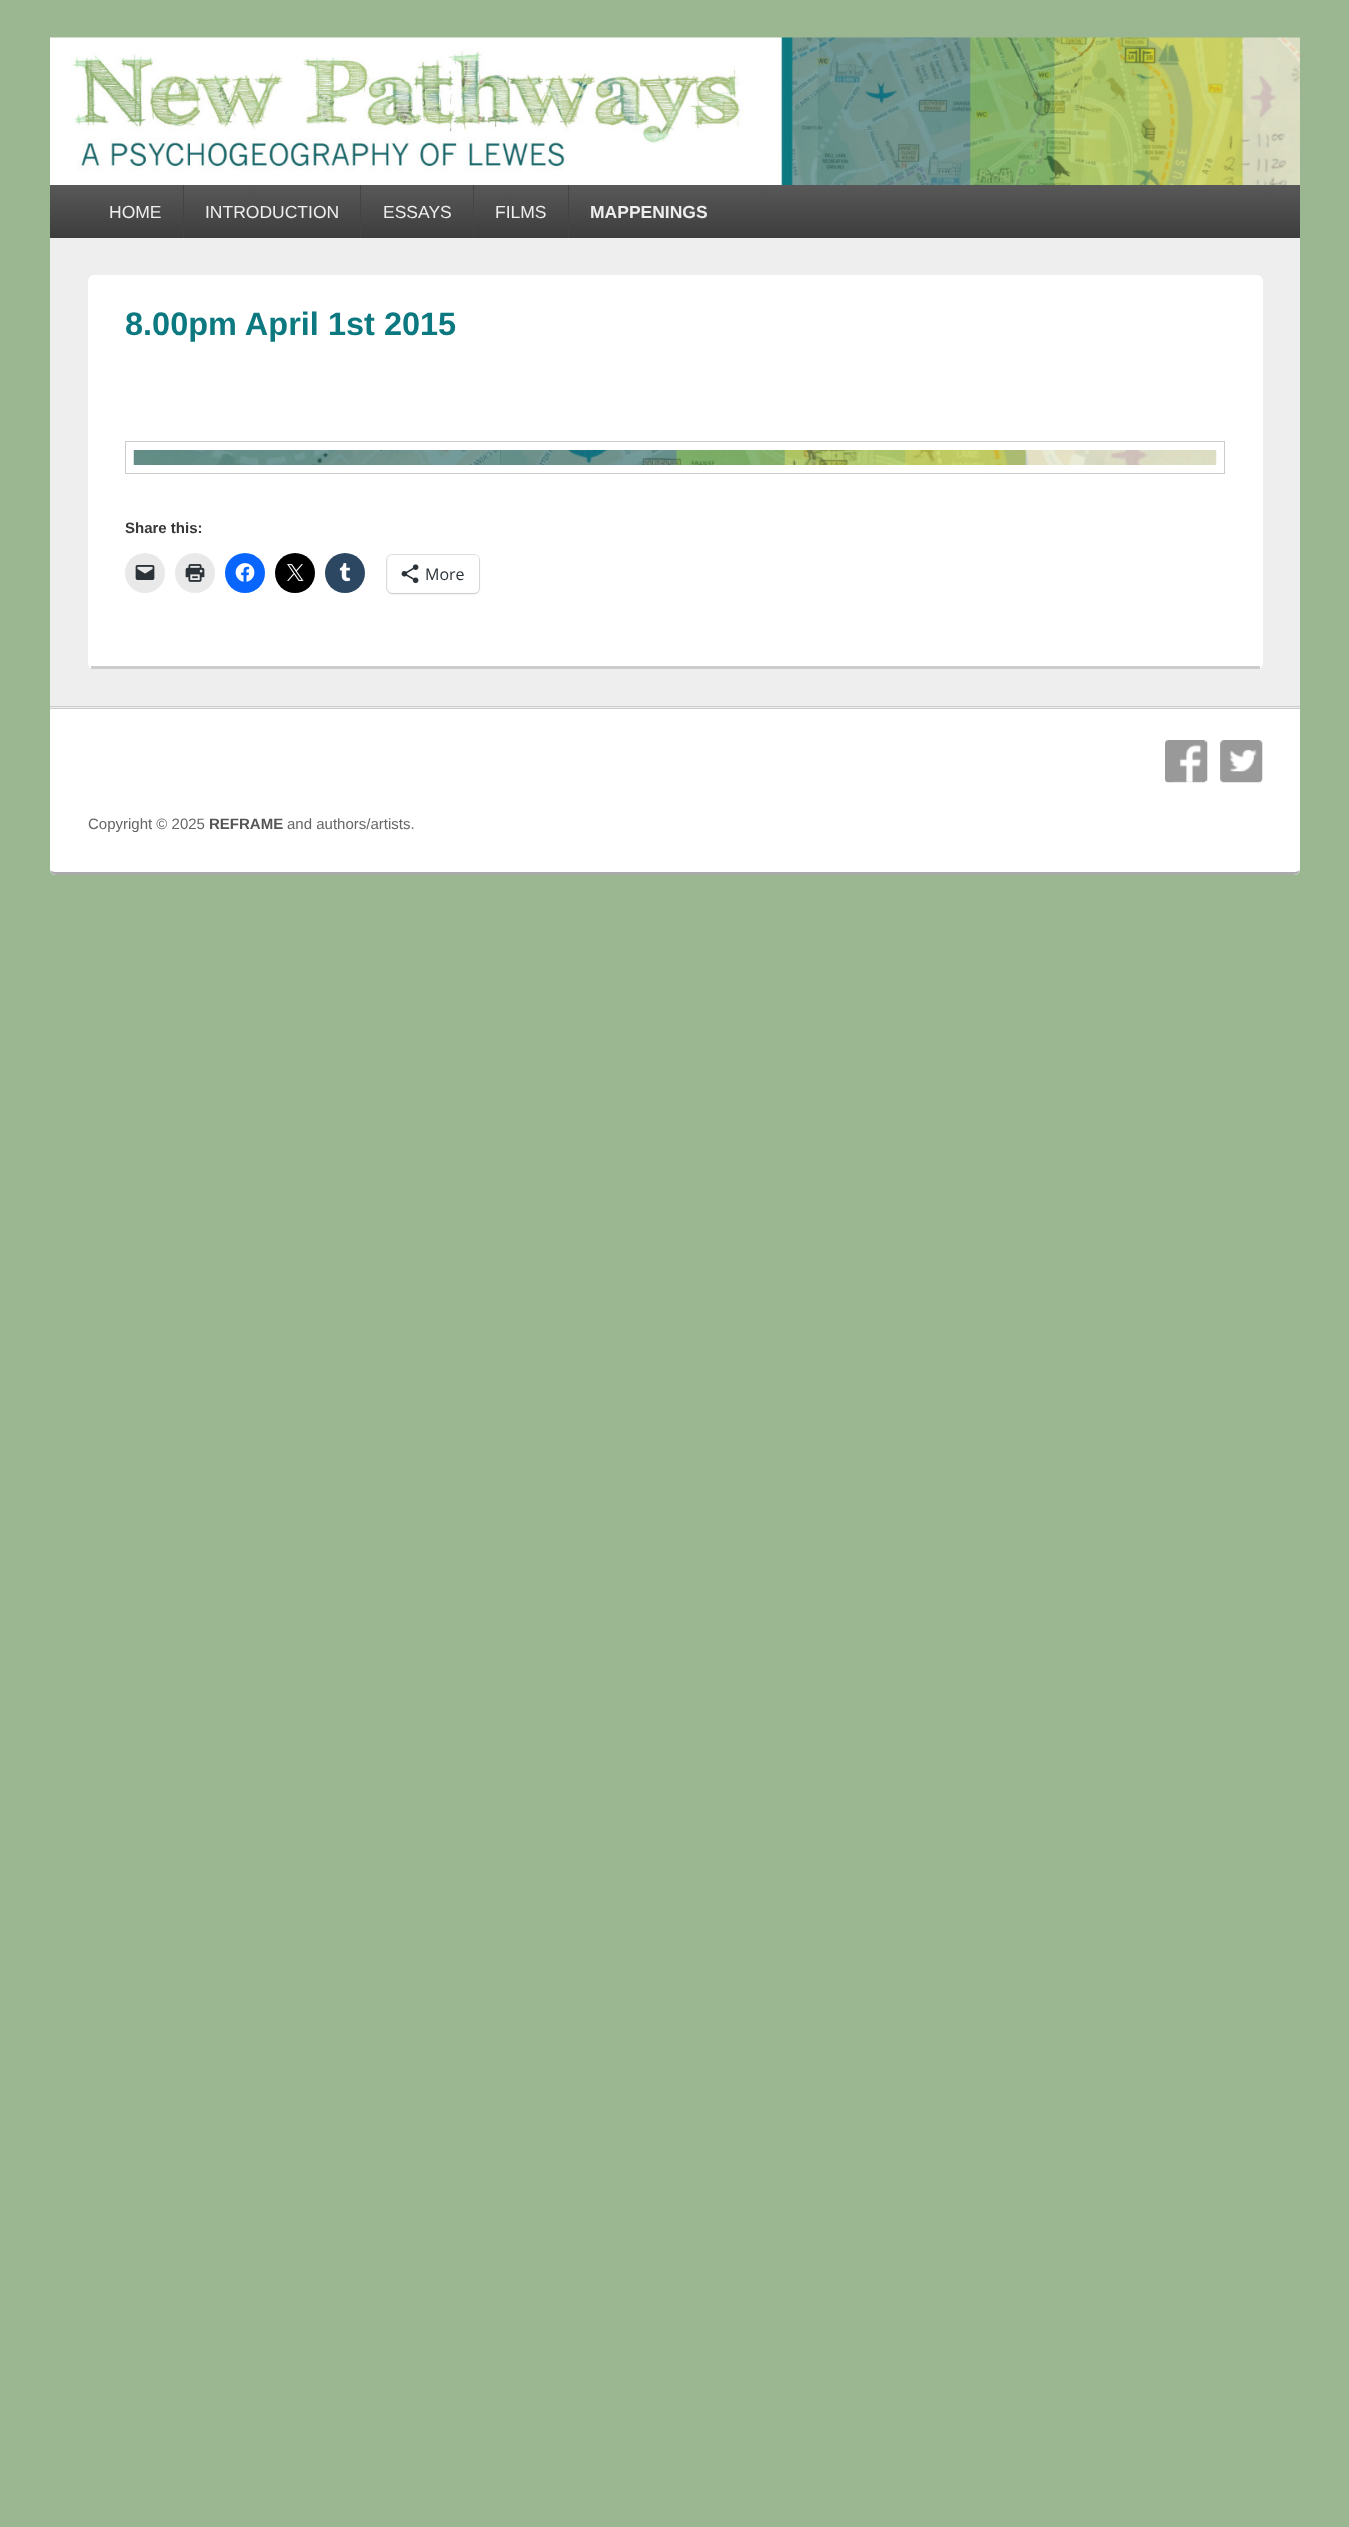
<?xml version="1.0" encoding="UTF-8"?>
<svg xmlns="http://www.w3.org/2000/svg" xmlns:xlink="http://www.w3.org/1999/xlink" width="1349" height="2527">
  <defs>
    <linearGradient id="g1" gradientUnits="userSpaceOnUse" x1="675" y1="185" x2="675" y2="238"><stop offset="0" stop-color="#585858" /><stop offset="1" stop-color="#3d3d3d" /></linearGradient>
  </defs>
  <rect width="100%" height="100%" fill="#9bb791" />
  <rect x="50" y="38" width="1250" height="837" rx="6" fill="#eeeeee" />
  <image x="50" y="37" width="1250" height="148" xlink:href="image1.png" />
  <rect x="50" y="185" width="1250" height="53" fill="url(#g1)" />
  <rect x="183" y="185" width="1" height="53" fill="#444444" />
  <rect x="360" y="185" width="1" height="53" fill="#444444" />
  <rect x="473" y="185" width="1" height="53" fill="#444444" />
  <rect x="568" y="185" width="1" height="53" fill="#444444" />
  <rect x="88" y="275" width="1175" height="394" rx="6" fill="#ffffff" />
  <rect x="91" y="666" width="1169" height="3" fill="#cccccc" />
  <rect x="125.5" y="441.5" width="1099" height="32" fill="none" stroke="#cccccc" />
  <image x="133" y="450" width="1084" height="15" xlink:href="image2.png" />
  <circle cx="145" cy="573" r="20" fill="#e9e9e9" />
  <image x="135" y="565" width="20" height="15" xlink:href="image3.png" />
  <circle cx="195" cy="573" r="20" fill="#e9e9e9" />
  <image x="185" y="564" width="20" height="18" xlink:href="image4.png" />
  <circle cx="245" cy="573" r="20" fill="#0866ff" />
  <image x="235" y="563" width="20" height="19" xlink:href="image5.png" />
  <circle cx="295" cy="573" r="20" fill="#000000" />
  <image x="287" y="564" width="17" height="17" xlink:href="image6.png" />
  <circle cx="345" cy="573" r="20" fill="#2c4762" />
  <image x="339" y="563" width="12" height="19" xlink:href="image7.png" />
  <rect x="386.5" y="554.5" width="93" height="39" rx="5.5" fill="none" stroke="#e0e0e0" />
  <rect x="388" y="556" width="91" height="38" rx="5" fill="#000000" fill-opacity="0.12" filter="blur(1px)" />
  <rect x="388" y="555" width="91" height="38" rx="5" fill="#ffffff" />
  <image x="401" y="564" width="18" height="20" xlink:href="image8.png" />
  <rect x="50" y="706" width="1250" height="1" fill="#cccccc" />
  <path d="M 50 708 h 1250 v 161 c 0 3.5 -2.5 6 -6 6 h -1238 c -3.5 0 -6 -2.5 -6 -6 z" fill="#ffffff" />
  <rect x="50" y="708" width="1250" height="1" fill="#cccccc" />
  <path d="M 56 875 h 1238 c 3 0 6 -3 6 -6 c 0 2 -3 3 -6 3 h -1238 c -3 0 -6 -1 -6 -3 c 0 3 3 6 6 6 z" fill="#aaaaaa" />
  <image x="1165" y="740" width="43" height="43" xlink:href="image9.png" />
  <image x="1220" y="740" width="43" height="43" xlink:href="image10.png" />
  <text x="109" y="218" style="font-family: Liberation Sans; font-size: 17.5px; fill: #eeeeee">HOME</text>
  <text x="205" y="218" style="font-family: Liberation Sans; font-size: 17.5px; fill: #eeeeee">INTRODUCTION</text>
  <text x="383" y="218" style="font-family: Liberation Sans; font-size: 17.5px; fill: #eeeeee">ESSAYS</text>
  <text x="495" y="218" style="font-family: Liberation Sans; font-size: 17.5px; fill: #eeeeee">FILMS</text>
  <text x="590" y="218" style="font-family: Liberation Sans; font-size: 17.5px; font-weight: bold; fill: #eeeeee">MAPPENINGS</text>
  <text x="125" y="335" style="font-family: Liberation Sans; font-size: 32.5px; font-weight: bold; fill: #0c7980">8.00pm April 1st 2015</text>
  <text x="125" y="533" style="font-family: Liberation Sans; font-size: 15px; font-weight: bold; fill: #373737">Share this:</text>
  <text x="425" y="580" style="font-family: Open Sans; font-size: 16px; fill: #2c3338">More</text>
  <text x="88" y="829" style="font-family: Liberation Sans; font-size: 15px; fill: #666666">Copyright © 2025</text>
  <text x="209" y="829" style="font-family: Liberation Sans; font-size: 15px; font-weight: bold; fill: #555555">REFRAME</text>
  <text x="287" y="829" style="font-family: Liberation Sans; font-size: 15px; fill: #666666">and authors/artists.</text>
</svg>
